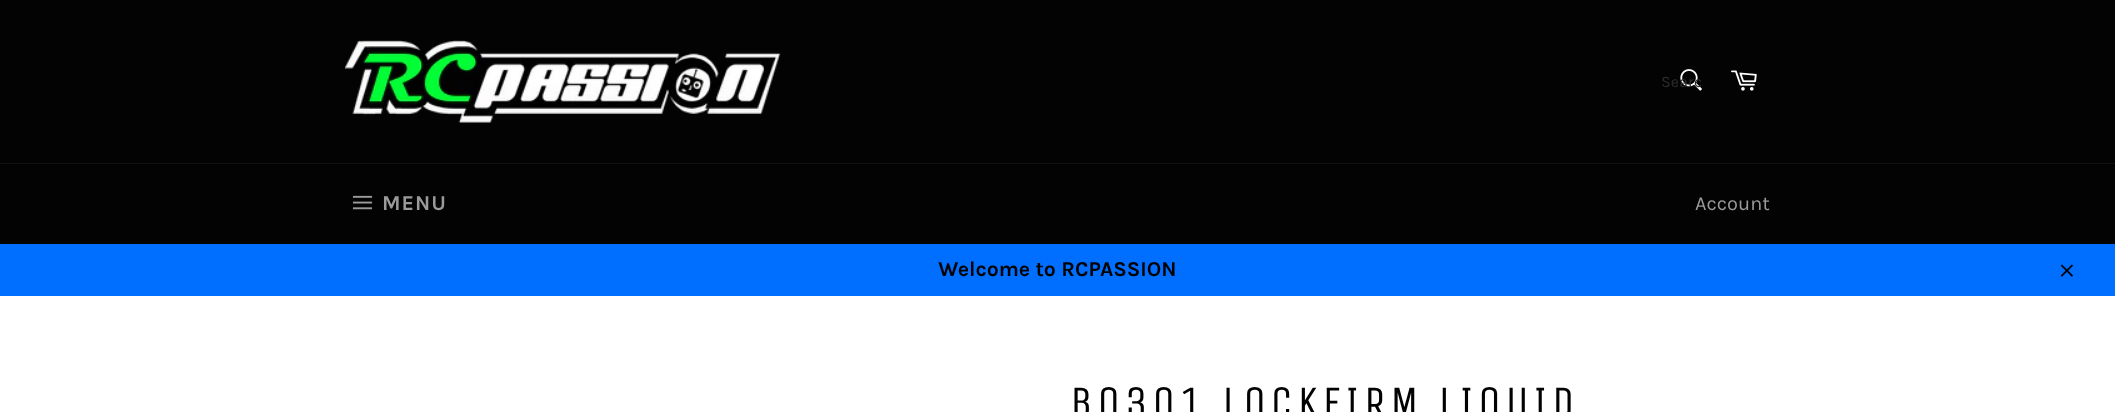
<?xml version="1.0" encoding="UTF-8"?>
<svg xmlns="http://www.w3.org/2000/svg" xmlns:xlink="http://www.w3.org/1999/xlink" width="2115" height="412">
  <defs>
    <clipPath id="clip1"><rect x="1661" y="73" width="40" height="18" /></clipPath>
  </defs>
  <rect width="100%" height="100%" fill="#030303" />
  <image x="345" y="40" width="436" height="83" xlink:href="image1.png" />
  <image x="1680" y="69" width="22" height="22" xlink:href="image2.png" />
  <image x="1731" y="70" width="26" height="21" xlink:href="image3.png" />
  <rect y="163" width="2115" height="1" fill="#101010" />
  <image x="352" y="195" width="21" height="15" xlink:href="image4.png" />
  <rect y="244" width="2115" height="52" fill="#006eff" />
  <image x="2060" y="264" width="13" height="13" xlink:href="image5.png" />
  <rect y="296" width="2115" height="116" fill="#ffffff" />
  <g clip-path="url(#clip1)">
    <text x="1661" y="87" style="font-family: Karla; font-size: 16px; fill: #2d2d2d">Searc</text>
  </g>
  <text x="382" y="210" style="font-family: Karla; font-size: 21.25px; font-weight: bold; letter-spacing: 1px; fill: #9a9a9a">MENU</text>
  <text x="1695" y="210" style="font-family: Karla; font-size: 20px; fill: #9a9a9a">Account</text>
  <text x="938" y="276" style="font-family: Karla; font-size: 21.25px; font-weight: bold; fill: #020202">Welcome to RCPASSION</text>
  <text x="1070" y="417" style="font-family: Unica One; font-size: 45px; letter-spacing: 4.5px; fill: #020202">B0301 LOCKFIRM LIQUID</text>
</svg>
